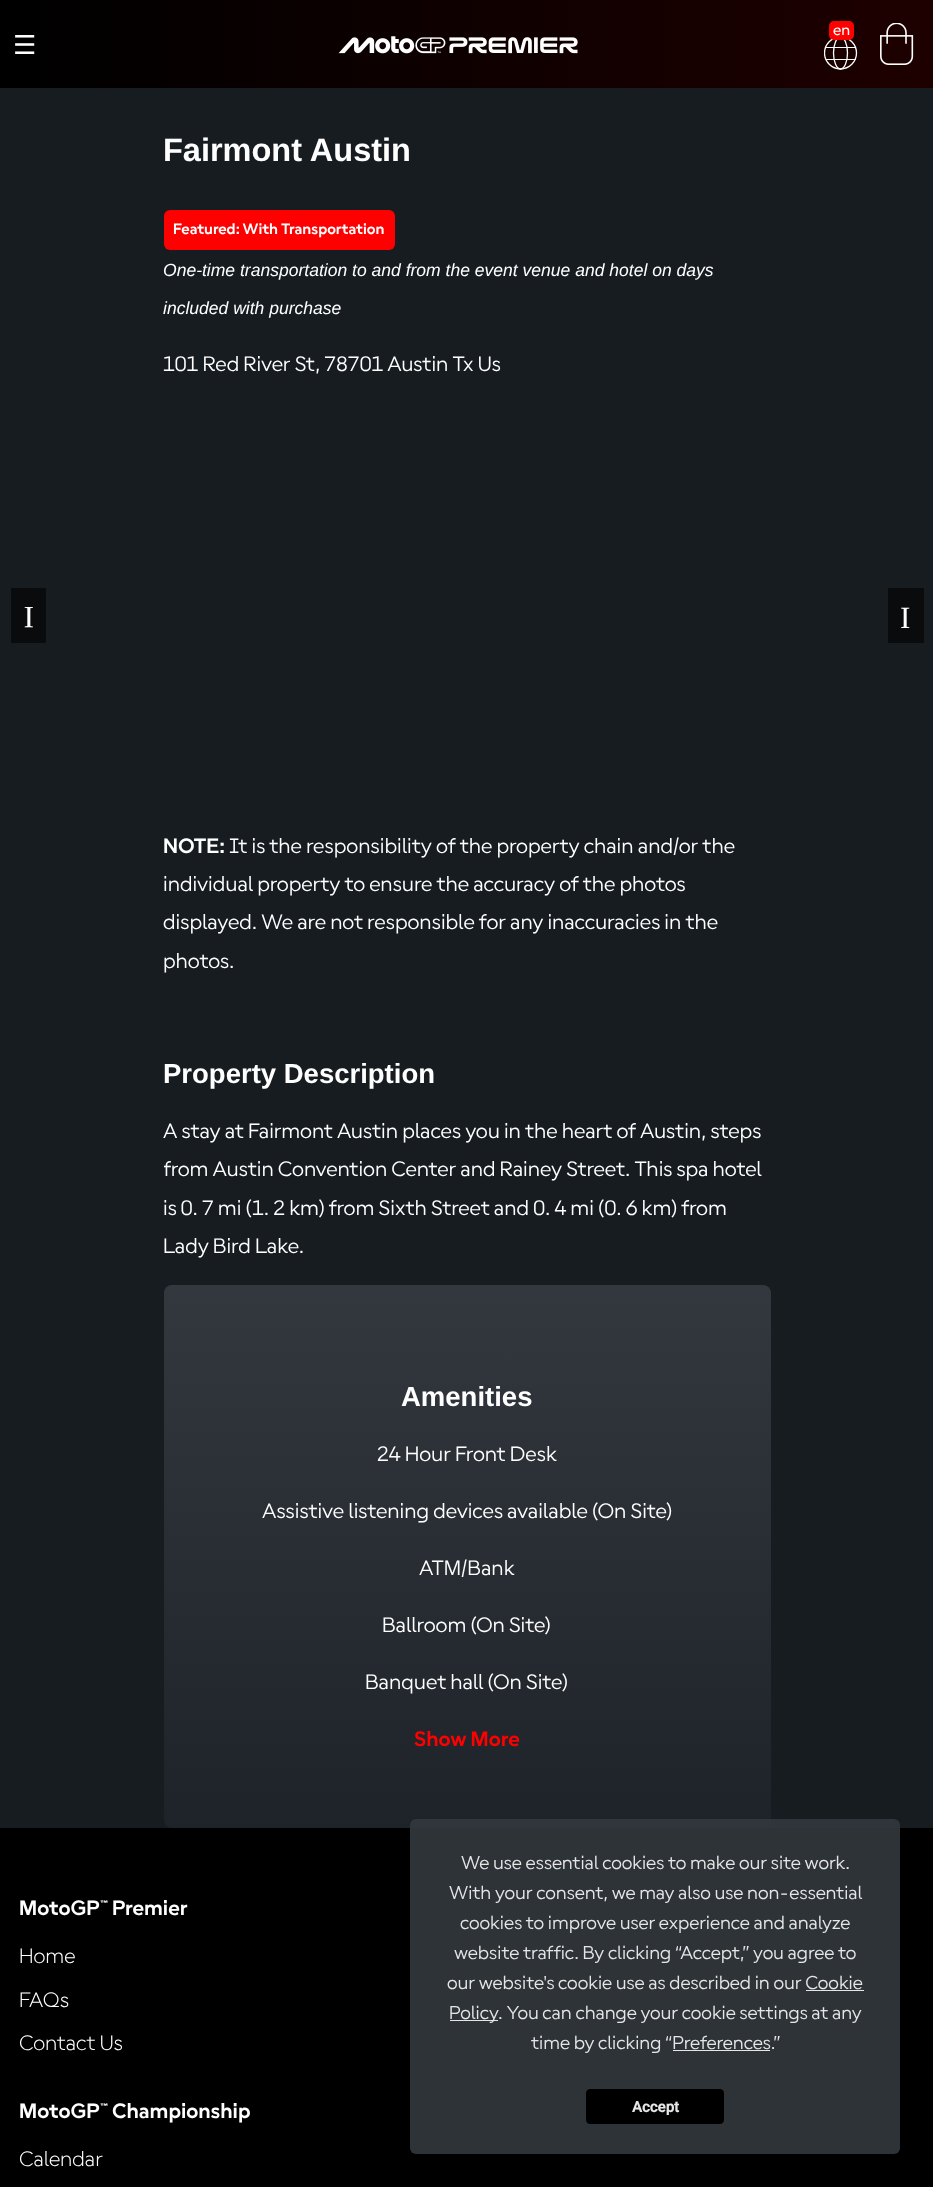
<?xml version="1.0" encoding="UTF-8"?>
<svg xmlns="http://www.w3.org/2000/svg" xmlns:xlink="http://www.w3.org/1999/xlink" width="933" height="2187">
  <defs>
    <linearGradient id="g1" gradientUnits="userSpaceOnUse" x1="0" y1="44" x2="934" y2="44"><stop offset="0" stop-color="#000000" /><stop offset="1" stop-color="#1e0000" /></linearGradient>
    <clipPath id="clip1"><rect x="824" y="36" width="34" height="34" /></clipPath>
    <linearGradient id="g2" gradientUnits="userSpaceOnUse" x1="468" y1="1828" x2="468" y2="1285"><stop offset="0" stop-color="#1e2329" /><stop offset="1" stop-color="#33383e" /></linearGradient>
    <clipPath id="clip2"><rect x="164" y="1006" width="607" height="822" rx="8" /></clipPath>
  </defs>
  <rect width="100%" height="100%" fill="#171c21" />
  <rect width="933" height="88" fill="url(#g1)" />
  <g clip-path="url(#clip1)">
    <circle cx="840.5" cy="53" r="16" fill="none" stroke="#ffffff" stroke-width="1.3" />
  </g>
  <ellipse cx="840.5" cy="53" rx="7" ry="16" fill="none" stroke="#ffffff" stroke-width="1.3" />
  <rect x="829" y="21" width="25" height="19" rx="5" fill="#ff0000" />
  <rect x="826" y="47" width="30" height="1" fill="#ffffff" />
  <rect x="826" y="59" width="30" height="1" fill="#ffffff" />
  <image x="880" y="23" width="34" height="42" xlink:href="image1.png" />
  <image x="338" y="36" width="240" height="18" xlink:href="image2.png" />
  <rect x="164" y="210" width="231" height="40" rx="6" fill="#ff0000" />
  <rect x="11" y="588" width="35" height="55" fill="#090b0d" />
  <rect x="888" y="588" width="36" height="55" fill="#090b0d" />
  <rect x="164" y="1285" width="607" height="543" rx="8" fill="url(#g2)" />
  <rect y="1828" width="933" height="359" fill="#000000" />
  <rect x="410" y="1819" width="490" height="335" rx="6" fill="#33383e" fill-opacity="0.9" />
  <rect x="806" y="1990" width="58" height="1" fill="#e6e6e6" />
  <rect x="450" y="2020" width="48" height="1" fill="#e6e6e6" />
  <rect x="673" y="2050" width="97" height="1" fill="#e6e6e6" />
  <rect x="586.5" y="2089.5" width="137" height="34" rx="3.5" fill="#000000" stroke="#000000" />
  <text x="833" y="35" style="font-family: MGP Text; font-size: 16.25px; font-weight: 500; fill: #ffffff">en</text>
  <text x="13" y="54" style="font-family: DejaVu Sans; font-size: 26px; fill: #ffffff">☰</text>
  <text x="163" y="161" style="font-family: Liberation Sans; font-size: 32.5px; font-weight: bold; fill: #ffffff">Fairmont Austin</text>
  <text x="173" y="234" style="font-family: MGP Text; font-size: 16.25px; font-weight: bold; fill: #ffffff">Featured: With Transportation</text>
  <text x="163" y="276" style="font-family: Liberation Sans; font-size: 17.55px; font-style: italic; fill: #ffffff">One-time transportation to and from the event venue and hotel on days</text>
  <text x="163" y="314" style="font-family: Liberation Sans; font-size: 17.55px; font-style: italic; fill: #ffffff">included with purchase</text>
  <text x="163" y="371" style="font-family: MGP Text; font-size: 22.5px; fill: #ffffff">101 Red River St, 78701 Austin Tx Us</text>
  <text x="34" y="607" transform="rotate(180 34 607)" style="font-family: Liberation Serif; font-size: 31px; fill: #ffffff">I</text>
  <text x="900" y="628" style="font-family: Liberation Serif; font-size: 31px; fill: #ffffff">I</text>
  <text x="163" y="853" style="font-family: MGP Text; font-size: 22.5px; font-weight: bold; fill: #ffffff">NOTE:</text>
  <text x="229" y="853" style="font-family: MGP Text; font-size: 22.5px; fill: #ffffff">It is the responsibility of the property chain and/or the</text>
  <text x="163" y="891" style="font-family: MGP Text; font-size: 22.5px; fill: #ffffff">individual property to ensure the accuracy of the photos</text>
  <text x="163" y="929" style="font-family: MGP Text; font-size: 22.5px; fill: #ffffff">displayed. We are not responsible for any inaccuracies in the</text>
  <text x="163" y="968" style="font-family: MGP Text; font-size: 22.5px; fill: #ffffff">photos.</text>
  <text x="163" y="1083" style="font-family: Liberation Sans; font-size: 27.5px; font-weight: bold; fill: #ffffff">Property Description</text>
  <text x="163" y="1138" style="font-family: MGP Text; font-size: 22.5px; fill: #ffffff">A stay at Fairmont Austin places you in the heart of Austin, steps</text>
  <g clip-path="url(#clip2)">
    <text x="163" y="1176" style="font-family: MGP Text; font-size: 22.5px; fill: #ffffff">from Austin Convention Center and Rainey Street. This spa hotel</text>
  </g>
  <text x="163" y="1215" style="font-family: MGP Text; font-size: 22.5px; fill: #ffffff">is 0. 7 mi (1. 2 km) from Sixth Street and 0. 4 mi (0. 6 km) from</text>
  <text x="163" y="1253" style="font-family: MGP Text; font-size: 22.5px; fill: #ffffff">Lady Bird Lake.</text>
  <text x="401" y="1406" style="font-family: Liberation Sans; font-size: 27.5px; font-weight: bold; fill: #ffffff">Amenities</text>
  <text x="377" y="1461" style="font-family: MGP Text; font-size: 22.5px; fill: #ffffff">24 Hour Front Desk</text>
  <text x="262" y="1518" style="font-family: MGP Text; font-size: 22.5px; fill: #ffffff">Assistive listening devices available (On Site)</text>
  <text x="419" y="1575" style="font-family: MGP Text; font-size: 22.5px; fill: #ffffff">ATM/Bank</text>
  <text x="382" y="1632" style="font-family: MGP Text; font-size: 22.5px; fill: #ffffff">Ballroom (On Site)</text>
  <text x="365" y="1689" style="font-family: MGP Text; font-size: 22.5px; fill: #ffffff">Banquet hall (On Site)</text>
  <text x="414" y="1746" style="font-family: MGP Text; font-size: 22.5px; font-weight: bold; fill: #ff0000">Show More</text>
  <text x="19" y="1915" style="font-family: MGP Text; font-size: 22.5px; font-weight: bold; fill: #ffffff">MotoGP™</text>
  <text x="112" y="1915" style="font-family: MGP Text; font-size: 22.5px; font-weight: bold; fill: #ffffff">Premier</text>
  <text x="19" y="1963" style="font-family: MGP Text; font-size: 22.5px; font-weight: 300; fill: #ffffff">Home</text>
  <text x="19" y="2007" style="font-family: MGP Text; font-size: 22.5px; font-weight: 300; fill: #ffffff">FAQs</text>
  <text x="19" y="2050" style="font-family: MGP Text; font-size: 22.5px; font-weight: 300; fill: #ffffff">Contact Us</text>
  <text x="19" y="2118" style="font-family: MGP Text; font-size: 22.5px; font-weight: bold; fill: #ffffff">MotoGP™</text>
  <text x="112" y="2118" style="font-family: MGP Text; font-size: 22.5px; font-weight: bold; fill: #ffffff">Championship</text>
  <text x="19" y="2166" style="font-family: MGP Text; font-size: 22.5px; font-weight: 300; fill: #ffffff">Calendar</text>
  <text x="461" y="1869" style="font-family: MGP Text; font-size: 20px; fill: #e6e6e6">We use essential cookies to make our site work.</text>
  <text x="449" y="1899" style="font-family: MGP Text; font-size: 20px; fill: #e6e6e6">With your consent, we may also use non-essential</text>
  <text x="460" y="1929" style="font-family: MGP Text; font-size: 20px; fill: #e6e6e6">cookies to improve user experience and analyze</text>
  <text x="454" y="1959" style="font-family: MGP Text; font-size: 20px; fill: #e6e6e6">website traffic. By clicking “Accept,” you agree to</text>
  <text x="447" y="1989" style="font-family: MGP Text; font-size: 20px; fill: #e6e6e6">our website's cookie use as described in our Cookie</text>
  <text x="449" y="2019" style="font-family: MGP Text; font-size: 20px; fill: #e6e6e6">Policy</text>
  <text x="498" y="2019" style="font-family: MGP Text; font-size: 20px; fill: #e6e6e6">. You can change your cookie settings at any</text>
  <text x="531" y="2049" style="font-family: MGP Text; font-size: 20px; fill: #e6e6e6">time by clicking “Preferences.”</text>
  <text x="632" y="2112" style="font-family: Roboto; font-size: 15px; font-weight: bold; fill: #e6e6e6">Accept</text>
</svg>
